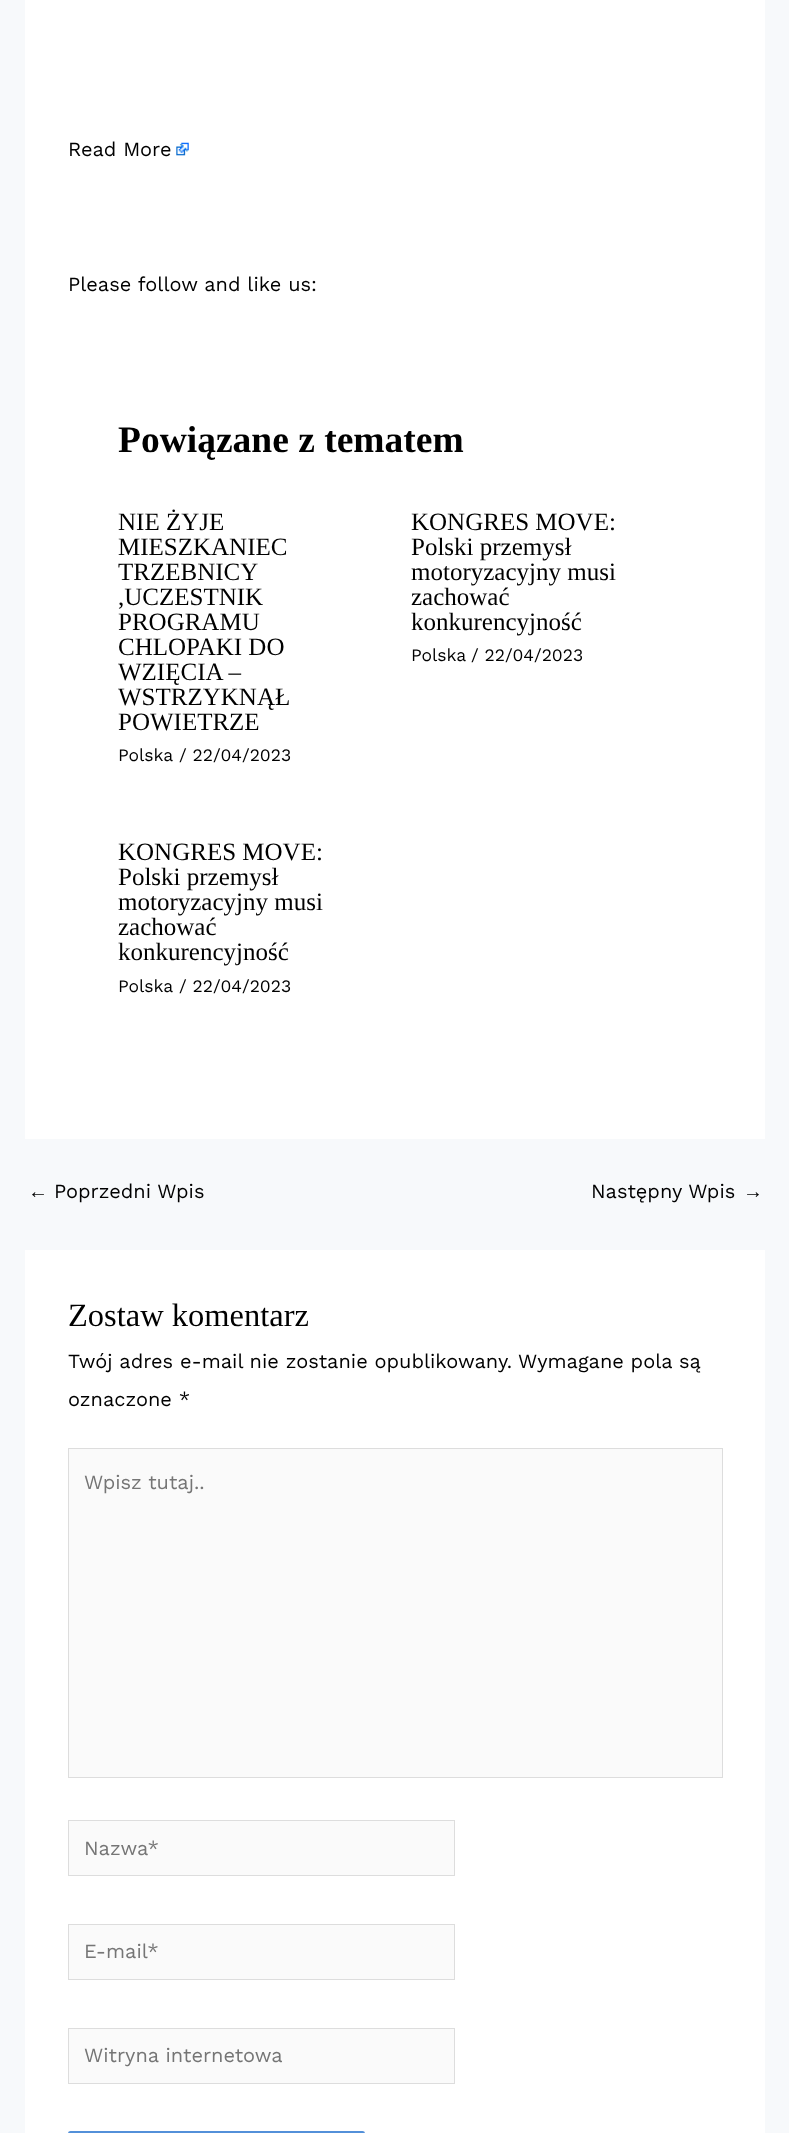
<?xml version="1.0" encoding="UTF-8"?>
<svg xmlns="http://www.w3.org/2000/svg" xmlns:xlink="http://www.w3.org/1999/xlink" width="789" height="2133">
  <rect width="100%" height="100%" fill="#f7f9fb" />
  <rect x="25" width="740" height="1139" fill="#ffffff" />
  <image x="176" y="142" width="13" height="14" xlink:href="image1.png" />
  <rect x="25" y="1250" width="740" height="883" fill="#ffffff" />
  <rect x="68.5" y="1448.5" width="654" height="329" fill="#fafafa" stroke="#dddddd" />
  <rect x="68.5" y="1820.5" width="386" height="55" fill="#fafafa" stroke="#dddddd" />
  <rect x="68.5" y="1924.5" width="386" height="55" fill="#fafafa" stroke="#dddddd" />
  <rect x="68.5" y="2028.5" width="386" height="55" fill="#fafafa" stroke="#dddddd" />
  <rect x="68" y="2131" width="297" height="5" rx="2.5" fill="#5390d9" />
  <text x="68" y="156" style="font-family: Work Sans; font-size: 20px; fill: #000000">Read More</text>
  <text x="68" y="291" style="font-family: Work Sans; font-size: 20px; fill: #000000">Please follow and like us:</text>
  <text x="118" y="452" style="font-family: Liberation Serif; font-size: 37.5px; font-weight: bold; fill: #000000">Powiązane z tematem</text>
  <text x="118" y="530" style="font-family: Liberation Serif; font-size: 25px; fill: #000000">NIE ŻYJE</text>
  <text x="118" y="555" style="font-family: Liberation Serif; font-size: 25px; fill: #000000">MIESZKANIEC</text>
  <text x="118" y="580" style="font-family: Liberation Serif; font-size: 25px; fill: #000000">TRZEBNICY</text>
  <text x="118" y="605" style="font-family: Liberation Serif; font-size: 25px; fill: #000000">,UCZESTNIK</text>
  <text x="118" y="630" style="font-family: Liberation Serif; font-size: 25px; fill: #000000">PROGRAMU</text>
  <text x="118" y="655" style="font-family: Liberation Serif; font-size: 25px; fill: #000000">CHLOPAKI DO</text>
  <text x="118" y="680" style="font-family: Liberation Serif; font-size: 25px; fill: #000000">WZIĘCIA –</text>
  <text x="118" y="705" style="font-family: Liberation Serif; font-size: 25px; fill: #000000">WSTRZYKNĄŁ</text>
  <text x="118" y="730" style="font-family: Liberation Serif; font-size: 25px; fill: #000000">POWIETRZE</text>
  <text x="118" y="761" style="font-family: Work Sans; font-size: 17.5px; fill: #000000">Polska</text>
  <text x="179" y="761" style="font-family: Work Sans; font-size: 17.5px; fill: #000000">/ 22/04/2023</text>
  <text x="411" y="530" style="font-family: Liberation Serif; font-size: 25px; fill: #000000">KONGRES MOVE:</text>
  <text x="411" y="555" style="font-family: Liberation Serif; font-size: 25px; fill: #000000">Polski przemysł</text>
  <text x="411" y="580" style="font-family: Liberation Serif; font-size: 25px; fill: #000000">motoryzacyjny musi</text>
  <text x="411" y="605" style="font-family: Liberation Serif; font-size: 25px; fill: #000000">zachować</text>
  <text x="411" y="630" style="font-family: Liberation Serif; font-size: 25px; fill: #000000">konkurencyjność</text>
  <text x="411" y="661" style="font-family: Work Sans; font-size: 17.5px; fill: #000000">Polska</text>
  <text x="471" y="661" style="font-family: Work Sans; font-size: 17.5px; fill: #000000">/ 22/04/2023</text>
  <text x="118" y="860" style="font-family: Liberation Serif; font-size: 25px; fill: #000000">KONGRES MOVE:</text>
  <text x="118" y="885" style="font-family: Liberation Serif; font-size: 25px; fill: #000000">Polski przemysł</text>
  <text x="118" y="910" style="font-family: Liberation Serif; font-size: 25px; fill: #000000">motoryzacyjny musi</text>
  <text x="118" y="935" style="font-family: Liberation Serif; font-size: 25px; fill: #000000">zachować</text>
  <text x="118" y="960" style="font-family: Liberation Serif; font-size: 25px; fill: #000000">konkurencyjność</text>
  <text x="118" y="992" style="font-family: Work Sans; font-size: 17.5px; fill: #000000">Polska</text>
  <text x="179" y="992" style="font-family: Work Sans; font-size: 17.5px; fill: #000000">/ 22/04/2023</text>
  <text x="28" y="1198" style="font-family: Liberation Sans; font-size: 20px; fill: #000000">←</text>
  <text x="54" y="1198" style="font-family: Work Sans; font-size: 20px; fill: #000000">Poprzedni Wpis</text>
  <text x="591" y="1198" style="font-family: Work Sans; font-size: 20px; fill: #000000">Następny Wpis</text>
  <text x="743" y="1198" style="font-family: Liberation Sans; font-size: 20px; fill: #000000">→</text>
  <text x="68" y="1326" style="font-family: Liberation Serif; font-size: 32.5px; fill: #000000">Zostaw komentarz</text>
  <text x="68" y="1368" style="font-family: Work Sans; font-size: 20px; fill: #000000">Twój adres e-mail nie zostanie opublikowany.</text>
  <text x="518" y="1368" style="font-family: Work Sans; font-size: 20px; fill: #000000">Wymagane pola są</text>
  <text x="68" y="1406" style="font-family: Work Sans; font-size: 20px; fill: #000000">oznaczone *</text>
  <text x="84" y="1489" style="font-family: Work Sans; font-size: 20px; fill: #757575">Wpisz tutaj..</text>
  <text x="84" y="1855" style="font-family: Work Sans; font-size: 20px; fill: #757575">Nazwa*</text>
  <text x="84" y="1958" style="font-family: Work Sans; font-size: 20px; fill: #757575">E-mail*</text>
  <text x="84" y="2062" style="font-family: Work Sans; font-size: 20px; fill: #757575">Witryna internetowa</text>
</svg>
